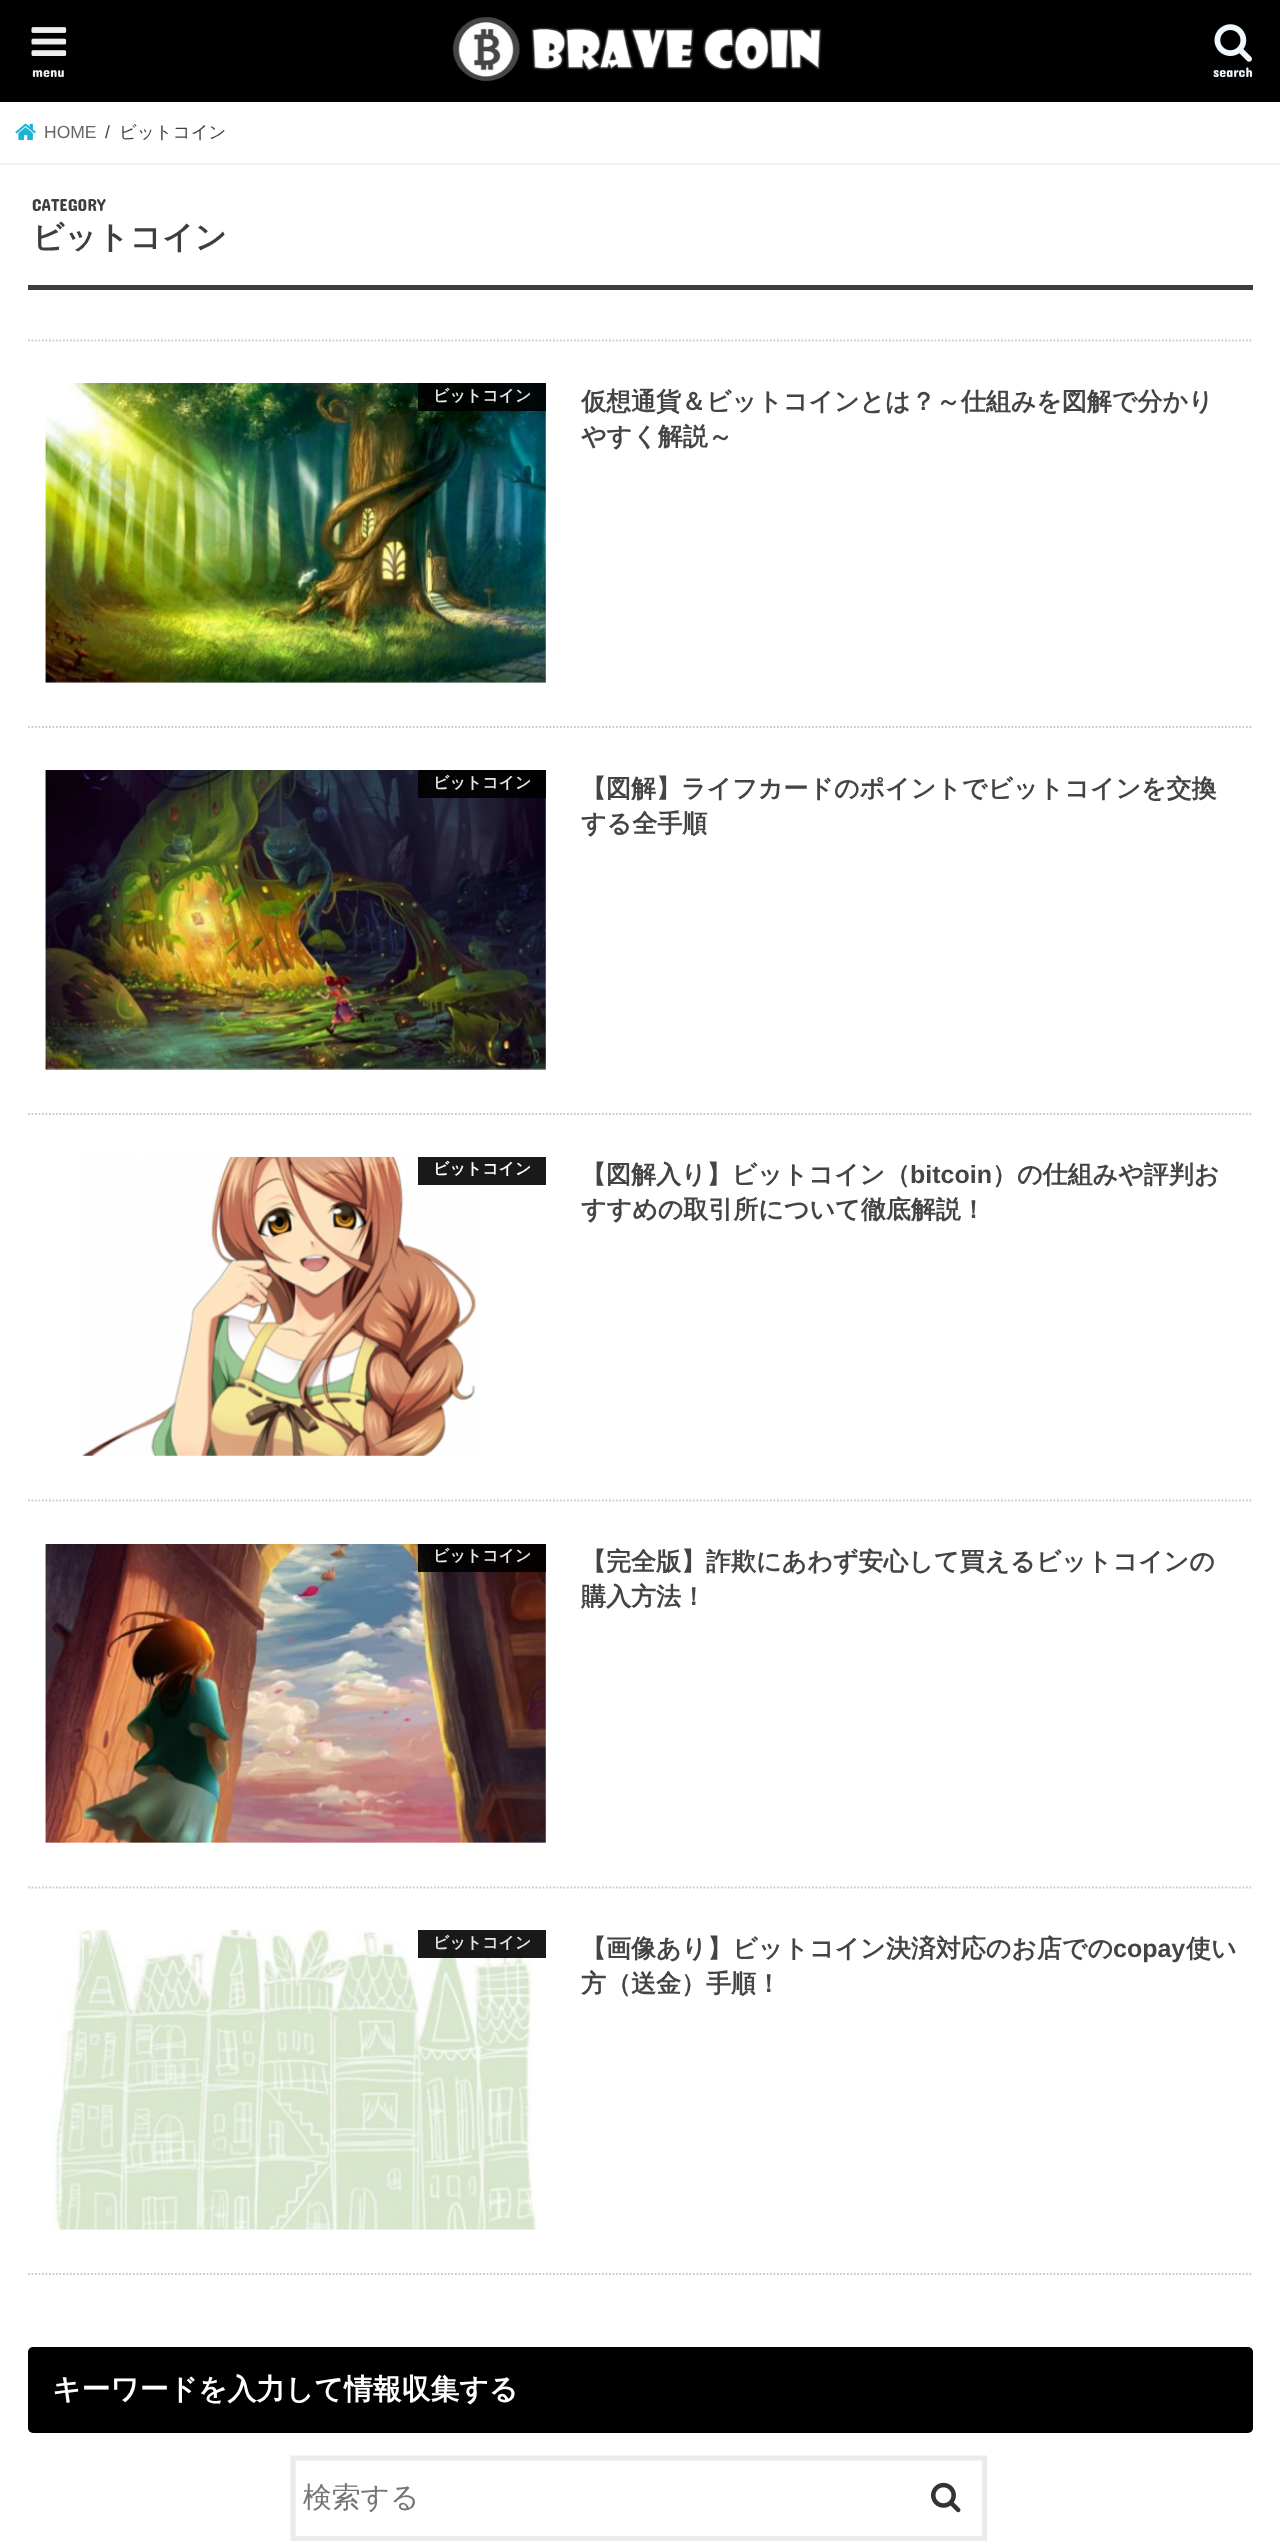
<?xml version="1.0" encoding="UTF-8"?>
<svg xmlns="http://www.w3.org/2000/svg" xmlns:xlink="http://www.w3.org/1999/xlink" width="1280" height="2545">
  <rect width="100%" height="100%" fill="#ffffff" />
  <rect width="1280" height="102" fill="#000000" />
  <image x="31" y="27" width="36" height="29" xlink:href="image1.png" />
  <image x="452" y="17" width="370" height="65" xlink:href="image2.png" />
  <image x="1214" y="24" width="38" height="38" xlink:href="image3.png" />
  <rect y="163" width="1280" height="2" fill="#f7f7f7" />
  <image x="15" y="123" width="21" height="18" xlink:href="image4.png" />
  <rect y="165" width="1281" height="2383" fill="#dddddd" filter="blur(1px)" />
  <rect y="165" width="1280" height="2380" fill="#ffffff" />
  <rect x="28" y="285" width="1225" height="5" fill="#3e3e3e" />
  <path d="M 28 340.5 h 1225" fill="none" stroke="#cccccc" stroke-width="1.8" stroke-dasharray="1.75 1.75" />
  <path d="M 28 727 h 1225" fill="none" stroke="#cccccc" stroke-width="1.8" stroke-dasharray="1.75 1.75" />
  <image x="45" y="383" width="501" height="300" xlink:href="image5.png" />
  <rect x="418" y="383" width="128" height="28" fill="#000000" fill-opacity="0.9" />
  <path d="M 28 1114 h 1225" fill="none" stroke="#cccccc" stroke-width="1.8" stroke-dasharray="1.75 1.75" />
  <image x="45" y="770" width="501" height="300" xlink:href="image6.png" />
  <rect x="418" y="770" width="128" height="28" fill="#000000" fill-opacity="0.9" />
  <path d="M 28 1500.5 h 1225" fill="none" stroke="#cccccc" stroke-width="1.8" stroke-dasharray="1.75 1.75" />
  <image x="81" y="1157" width="396" height="299" xlink:href="image7.png" />
  <rect x="418" y="1157" width="128" height="28" fill="#191919" />
  <path d="M 28 1887.5 h 1225" fill="none" stroke="#cccccc" stroke-width="1.8" stroke-dasharray="1.75 1.75" />
  <image x="45" y="1544" width="501" height="299" xlink:href="image8.png" />
  <rect x="418" y="1544" width="128" height="28" fill="#000000" fill-opacity="0.9" />
  <path d="M 28 2274 h 1225" fill="none" stroke="#cccccc" stroke-width="1.8" stroke-dasharray="1.75 1.75" />
  <image x="50" y="1930" width="487" height="300" xlink:href="image9.png" />
  <rect x="418" y="1930" width="128" height="28" fill="#000000" fill-opacity="0.9" />
  <rect x="28" y="2347" width="1225" height="86" rx="5" fill="#000000" />
  <path d="M 293 2458 h 691.5 v 80.5 h -691.5 z" fill="none" stroke="#ebebeb" stroke-width="5.2" />
  <image x="931" y="2482" width="30" height="31" xlink:href="image10.png" />
  <text x="32" y="77" style="font-family: Concert One; font-size: 14px; fill: #eeeeee">menu</text>
  <text x="1213" y="77" style="font-family: Concert One; font-size: 14px; fill: #edf9fc">search</text>
  <text x="44" y="138" style="font-family: Liberation Sans; font-size: 17.5px; fill: #666666">HOME</text>
  <text x="105" y="138" style="font-family: Liberation Sans; font-size: 17.5px; fill: #3e3e3e">/</text>
  <text x="119" y="138" style="font-family: WenQuanYi Zen Hei; font-size: 17.5px; font-weight: 500; fill: #3e3e3e">ビットコイン</text>
  <text x="32" y="211" style="font-family: Concert One; font-size: 17.5px; fill: #3e3e3e">CATEGORY</text>
  <text x="32" y="248" style="font-family: WenQuanYi Zen Hei; font-size: 31.75px; font-weight: bold; fill: #3e3e3e">ビットコイン</text>
  <text x="433" y="401" style="font-family: WenQuanYi Zen Hei; font-size: 16px; font-weight: bold; fill: #e6e6e6">ビットコイン</text>
  <text x="581" y="410" style="font-family: WenQuanYi Zen Hei; font-size: 25px; font-weight: bold; fill: #444444">仮想通貨＆ビットコインとは？～仕組みを図解で分かり</text>
  <text x="581" y="445" style="font-family: WenQuanYi Zen Hei; font-size: 25px; font-weight: bold; fill: #444444">やすく解説～</text>
  <text x="433" y="788" style="font-family: WenQuanYi Zen Hei; font-size: 16px; font-weight: bold; fill: #e6e6e6">ビットコイン</text>
  <text x="581" y="797" style="font-family: WenQuanYi Zen Hei; font-size: 25px; font-weight: bold; fill: #444444">【図解】ライフカードのポイントでビットコインを交換</text>
  <text x="581" y="832" style="font-family: WenQuanYi Zen Hei; font-size: 25px; font-weight: bold; fill: #444444">する全手順</text>
  <text x="433" y="1174" style="font-family: WenQuanYi Zen Hei; font-size: 16px; font-weight: bold; fill: #ffffff">ビットコイン</text>
  <text x="581" y="1183" style="font-family: WenQuanYi Zen Hei; font-size: 25px; font-weight: bold; fill: #444444">【図解入り】ビットコイン（</text>
  <text x="910" y="1183" style="font-family: Liberation Sans; font-size: 25px; font-weight: bold; fill: #444444">bitcoin</text>
  <text x="992" y="1183" style="font-family: WenQuanYi Zen Hei; font-size: 25px; font-weight: bold; fill: #444444">）の仕組みや評判お</text>
  <text x="581" y="1218" style="font-family: WenQuanYi Zen Hei; font-size: 25px; font-weight: bold; fill: #444444">すすめの取引所について徹底解説！</text>
  <text x="433" y="1561" style="font-family: WenQuanYi Zen Hei; font-size: 16px; font-weight: bold; fill: #e6e6e6">ビットコイン</text>
  <text x="581" y="1570" style="font-family: WenQuanYi Zen Hei; font-size: 25px; font-weight: bold; fill: #444444">【完全版】詐欺にあわず安心して買えるビットコインの</text>
  <text x="581" y="1605" style="font-family: WenQuanYi Zen Hei; font-size: 25px; font-weight: bold; fill: #444444">購入方法！</text>
  <text x="433" y="1948" style="font-family: WenQuanYi Zen Hei; font-size: 16px; font-weight: bold; fill: #e6e6e6">ビットコイン</text>
  <text x="581" y="1957" style="font-family: WenQuanYi Zen Hei; font-size: 25px; font-weight: bold; fill: #444444">【画像あり】ビットコイン決済対応のお店での</text>
  <text x="1113" y="1957" style="font-family: Liberation Sans; font-size: 25px; font-weight: bold; fill: #444444">copay</text>
  <text x="1186" y="1957" style="font-family: WenQuanYi Zen Hei; font-size: 25px; font-weight: bold; fill: #444444">使い</text>
  <text x="581" y="1992" style="font-family: WenQuanYi Zen Hei; font-size: 25px; font-weight: bold; fill: #444444">方（送金）手順！</text>
  <text x="52" y="2399" style="font-family: WenQuanYi Zen Hei; font-size: 28.8px; font-weight: bold; fill: #ffffff">キーワードを入力して情報収集する</text>
  <text x="303" y="2507" style="font-family: WenQuanYi Zen Hei; font-size: 28.8px; font-weight: 500; fill: #757575">検索する</text>
</svg>
